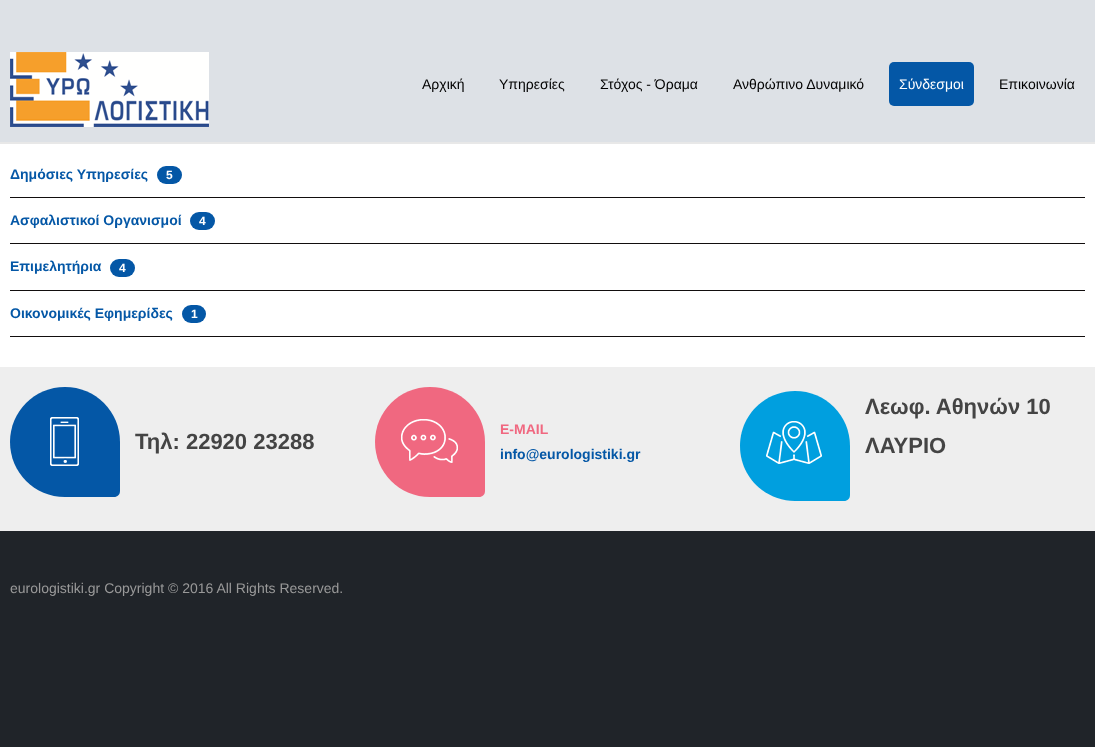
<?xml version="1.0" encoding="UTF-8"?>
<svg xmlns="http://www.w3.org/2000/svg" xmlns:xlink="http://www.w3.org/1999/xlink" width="1095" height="747">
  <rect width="100%" height="100%" fill="#202429" />
  <rect y="142" width="1095" height="225" fill="#ffffff" />
  <rect y="2" width="1095" height="142" fill="#1c1c1c" fill-opacity="0.1" filter="blur(0.5px)" />
  <rect width="1095" height="142" fill="#dde1e6" />
  <image x="10" y="52" width="199" height="75" xlink:href="image1.png" />
  <rect x="889" y="62" width="85" height="44" rx="5" fill="#0457a6" />
  <rect x="10" y="197" width="1075" height="1" fill="#120e0e" />
  <rect x="157" y="166" width="25" height="18" rx="9" fill="#0457a6" />
  <rect x="10" y="243" width="1075" height="1" fill="#120e0e" />
  <rect x="190" y="212" width="25" height="18" rx="9" fill="#0457a6" />
  <rect x="10" y="290" width="1075" height="1" fill="#120e0e" />
  <rect x="110" y="259" width="25" height="18" rx="9" fill="#0457a6" />
  <rect x="10" y="336" width="1075" height="1" fill="#120e0e" />
  <rect x="182" y="305" width="24" height="18" rx="9" fill="#0457a6" />
  <rect y="367" width="1095" height="164" fill="#eeeeee" />
  <path d="M 65 387 c 30.5 0 55 24.5 55 55 v 49 c 0 3.5 -2.5 6 -6 6 h -49 c -30.5 0 -55 -24.5 -55 -55 c 0 -30.5 24.5 -55 55 -55 z" fill="#0457a6" />
  <image x="50" y="417" width="29" height="49" xlink:href="image2.png" />
  <path d="M 430 387 c 30.5 0 55 24.5 55 55 v 49 c 0 3.5 -2.5 6 -6 6 h -49 c -30.5 0 -55 -24.5 -55 -55 c 0 -30.5 24.5 -55 55 -55 z" fill="#f06880" />
  <image x="401" y="419" width="57" height="44" xlink:href="image3.png" />
  <path d="M 795 391 c 30.5 0 55 24.5 55 55 v 49 c 0 3.5 -2.5 6 -6 6 h -49 c -30.5 0 -55 -24.5 -55 -55 c 0 -30.5 24.5 -55 55 -55 z" fill="#009fdf" />
  <image x="766" y="421" width="56" height="43" xlink:href="image4.png" />
  <text x="422" y="89" style="font-family: Liberation Sans; font-size: 14px; fill: #000000">Αρχική</text>
  <text x="499" y="89" style="font-family: Liberation Sans; font-size: 14px; fill: #000000">Υπηρεσίες</text>
  <text x="600" y="89" style="font-family: Liberation Sans; font-size: 14px; fill: #000000">Στόχος - Όραμα</text>
  <text x="733" y="89" style="font-family: Liberation Sans; font-size: 14px; fill: #000000">Ανθρώπινο Δυναμικό</text>
  <text x="899" y="89" style="font-family: Liberation Sans; font-size: 14px; fill: #ffffff">Σύνδεσμοι</text>
  <text x="999" y="89" style="font-family: Liberation Sans; font-size: 14px; fill: #000000">Επικοινωνία</text>
  <text x="10" y="179" style="font-family: Liberation Sans; font-size: 14px; font-weight: bold; fill: #0457a6">Δημόσιες Υπηρεσίες</text>
  <text x="166" y="179" style="font-family: Liberation Sans; font-size: 12px; font-weight: bold; fill: #ffffff">5</text>
  <text x="10" y="225" style="font-family: Liberation Sans; font-size: 14px; font-weight: bold; fill: #0457a6">Ασφαλιστικοί Οργανισμοί</text>
  <text x="199" y="225" style="font-family: Liberation Sans; font-size: 12px; font-weight: bold; fill: #ffffff">4</text>
  <text x="10" y="271" style="font-family: Liberation Sans; font-size: 14px; font-weight: bold; fill: #0457a6">Επιμελητήρια</text>
  <text x="119" y="272" style="font-family: Liberation Sans; font-size: 12px; font-weight: bold; fill: #ffffff">4</text>
  <text x="10" y="318" style="font-family: Liberation Sans; font-size: 14px; font-weight: bold; fill: #0457a6">Οικονομικές Εφημερίδες</text>
  <text x="191" y="318" style="font-family: Liberation Sans; font-size: 12px; font-weight: bold; fill: #ffffff">1</text>
  <text x="135" y="449" style="font-family: Liberation Sans; font-size: 22px; font-weight: bold; fill: #444444">Τηλ: 22920 23288</text>
  <text x="500" y="434" style="font-family: Liberation Sans; font-size: 14px; font-weight: bold; fill: #f06880">E-MAIL</text>
  <text x="500" y="459" style="font-family: Liberation Sans; font-size: 14px; font-weight: bold; fill: #0457a6">info@eurologistiki.gr</text>
  <text x="865" y="414" style="font-family: Liberation Sans; font-size: 22px; font-weight: bold; fill: #444444">Λεωφ. Αθηνών 10</text>
  <text x="865" y="453" style="font-family: Liberation Sans; font-size: 22px; font-weight: bold; fill: #444444">ΛΑΥΡΙΟ</text>
  <text x="10" y="593" style="font-family: Liberation Sans; font-size: 14px; fill: #999999">eurologistiki.gr Copyright © 2016 All Rights Reserved.</text>
</svg>
